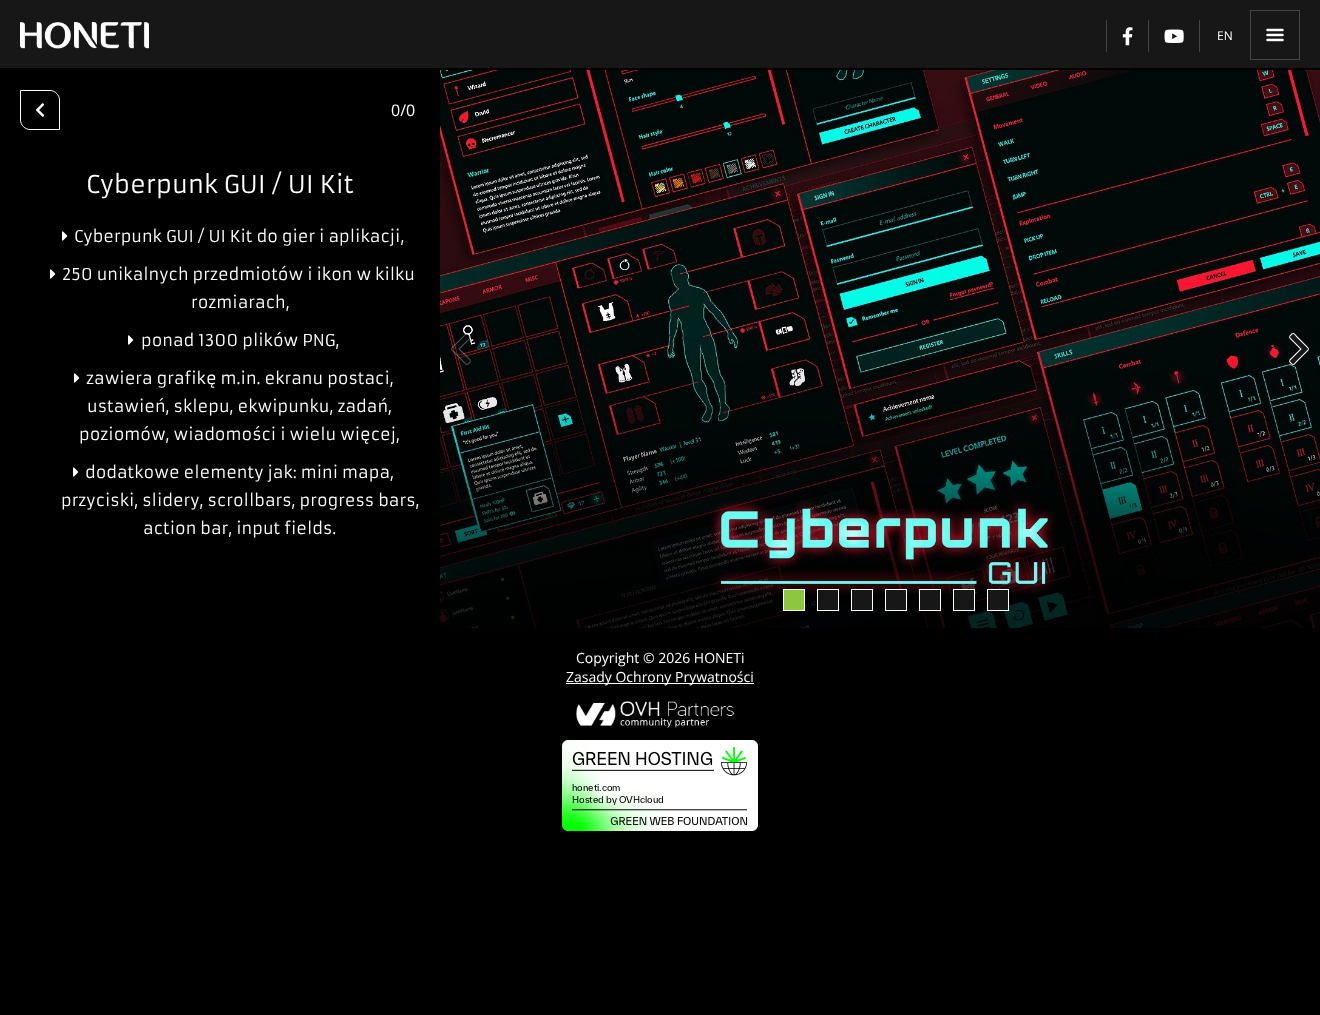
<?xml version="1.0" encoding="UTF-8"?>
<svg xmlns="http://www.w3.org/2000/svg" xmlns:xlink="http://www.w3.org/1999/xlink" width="1320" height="1015">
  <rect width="100%" height="100%" fill="#000000" />
  <rect width="1320" height="68" fill="#181718" />
  <image x="20" y="22" width="129" height="27" xlink:href="image1.png" />
  <rect x="1199" y="20" width="1" height="32" fill="#464546" />
  <rect x="1106" y="20" width="1" height="32" fill="#464546" />
  <image x="1122" y="27" width="11" height="19" xlink:href="image2.png" />
  <rect x="1148" y="20" width="1" height="32" fill="#464546" />
  <image x="1164" y="29" width="20" height="14" xlink:href="image3.png" />
  <rect x="1250.5" y="10.5" width="49" height="49" fill="none" stroke="#464546" />
  <image x="1266" y="28" width="18" height="14" xlink:href="image4.png" />
  <path d="M 20.5 90.5 h 29.5 c 5 0 9.5 4.5 9.5 9.5 v 29.5 h -29.5 c -5 0 -9.5 -4.5 -9.5 -9.5 z" fill="none" stroke="#ffffff" />
  <image x="35" y="103" width="10" height="14" xlink:href="image5.png" />
  <image x="440" y="70" width="880" height="558" xlink:href="image6.png" />
  <image x="451" y="333" width="20" height="32" xlink:href="image7.png" />
  <image x="1289" y="333" width="20" height="32" xlink:href="image8.png" />
  <rect x="783.5" y="589.5" width="21" height="21" fill="#8dc63f" stroke="#ffffff" />
  <rect x="817.5" y="589.5" width="21" height="21" fill="#181718" stroke="#ffffff" />
  <rect x="851.5" y="589.5" width="21" height="21" fill="#181718" stroke="#ffffff" />
  <rect x="885.5" y="589.5" width="21" height="21" fill="#181718" stroke="#ffffff" />
  <rect x="919.5" y="589.5" width="21" height="21" fill="#181718" stroke="#ffffff" />
  <rect x="953.5" y="589.5" width="21" height="21" fill="#181718" stroke="#ffffff" />
  <rect x="987.5" y="589.5" width="21" height="21" fill="#181718" stroke="#ffffff" />
  <image x="62" y="231" width="6" height="10" xlink:href="image9.png" />
  <image x="50" y="269" width="6" height="10" xlink:href="image9.png" />
  <image x="128" y="335" width="6" height="10" xlink:href="image9.png" />
  <image x="74" y="373" width="6" height="10" xlink:href="image9.png" />
  <image x="73" y="467" width="6" height="10" xlink:href="image9.png" />
  <rect x="566" y="683" width="188" height="1" fill="#ffffff" />
  <image x="576" y="701" width="159" height="27" xlink:href="image10.png" />
  <image x="560" y="740" width="200" height="91" xlink:href="image11.png" />
  <text x="1217" y="40" style="font-family: Open Sans; font-size: 12px; fill: #ffffff">EN</text>
  <text x="391" y="116" style="font-family: Open Sans; font-size: 16px; fill: #ffffff">0/0</text>
  <text x="86" y="193" style="font-family: Armata; font-size: 24px; fill: #ffffff">Cyberpunk GUI / UI Kit</text>
  <text x="74" y="242" style="font-family: Armata; font-size: 16px; fill: #ffffff">Cyberpunk GUI / UI Kit do gier i aplikacji,</text>
  <text x="62" y="280" style="font-family: Armata; font-size: 16px; fill: #ffffff">250 unikalnych przedmiotów i ikon w kilku</text>
  <text x="191" y="308" style="font-family: Armata; font-size: 16px; fill: #ffffff">rozmiarach,</text>
  <text x="141" y="346" style="font-family: Armata; font-size: 16px; fill: #ffffff">ponad 1300 plików PNG,</text>
  <text x="86" y="384" style="font-family: Armata; font-size: 16px; fill: #ffffff">zawiera grafikę m.in. ekranu postaci,</text>
  <text x="87" y="412" style="font-family: Armata; font-size: 16px; fill: #ffffff">ustawień, sklepu, ekwipunku, zadań,</text>
  <text x="79" y="440" style="font-family: Armata; font-size: 16px; fill: #ffffff">poziomów, wiadomości i wielu więcej,</text>
  <text x="85" y="478" style="font-family: Armata; font-size: 16px; fill: #ffffff">dodatkowe elementy jak: mini mapa,</text>
  <text x="61" y="506" style="font-family: Armata; font-size: 16px; fill: #ffffff">przyciski, slidery, scrollbars, progress bars,</text>
  <text x="143" y="534" style="font-family: Armata; font-size: 16px; fill: #ffffff">action bar, input fields.</text>
  <text x="576" y="663" style="font-family: Open Sans; font-size: 14px; fill: #ffffff">Copyright © 2026 HONETi</text>
  <text x="566" y="682" style="font-family: Open Sans; font-size: 14px; fill: #ffffff">Zasady Ochrony Prywatności</text>
</svg>
